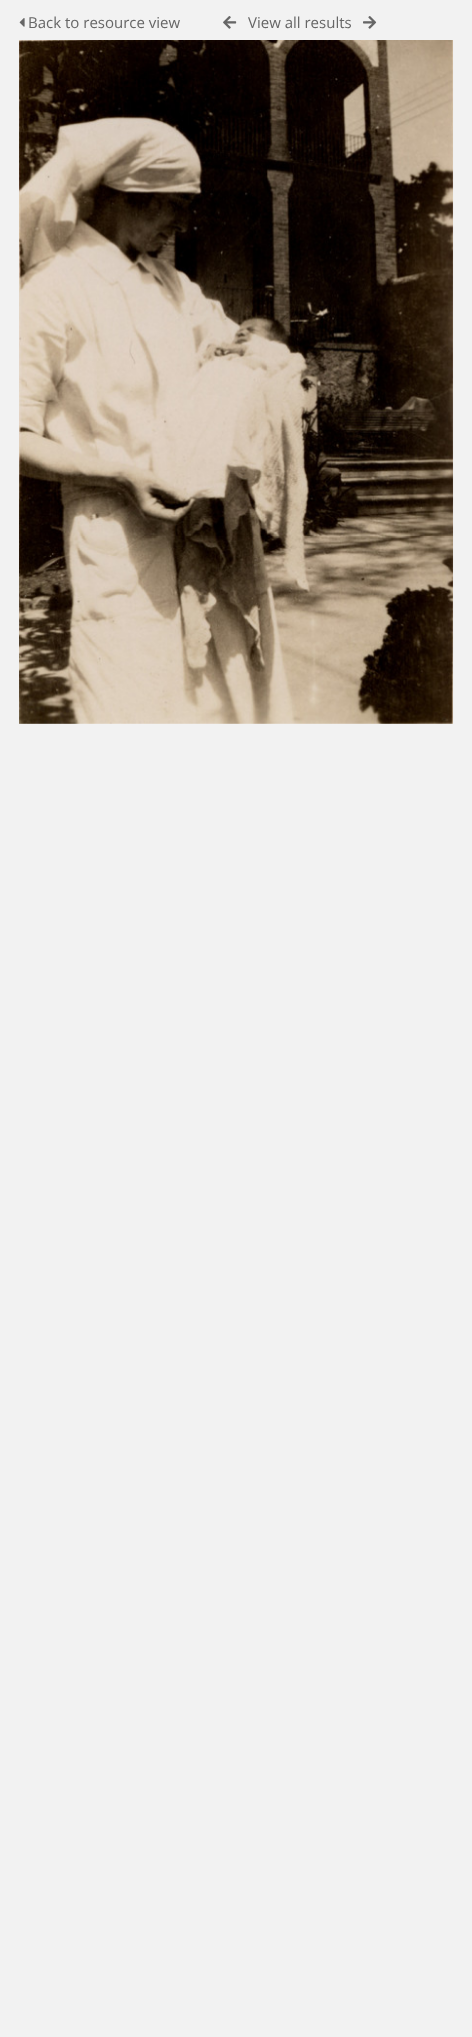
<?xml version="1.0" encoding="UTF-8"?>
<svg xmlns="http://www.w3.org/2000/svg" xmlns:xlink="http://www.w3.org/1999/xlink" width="472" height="2037">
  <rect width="100%" height="100%" fill="#f2f2f2" />
  <image x="19" y="18" width="6" height="9" xlink:href="image1.png" />
  <image x="223" y="16" width="14" height="13" xlink:href="image2.png" />
  <image x="363" y="16" width="14" height="13" xlink:href="image3.png" />
  <image x="19" y="40" width="435" height="684" xlink:href="image4.png" />
  <text x="28" y="28" style="font-family: Open Sans; font-size: 15px; fill: #666666">Back to resource view</text>
  <text x="248" y="28" style="font-family: Open Sans; font-size: 15px; fill: #666666">View all results</text>
</svg>
